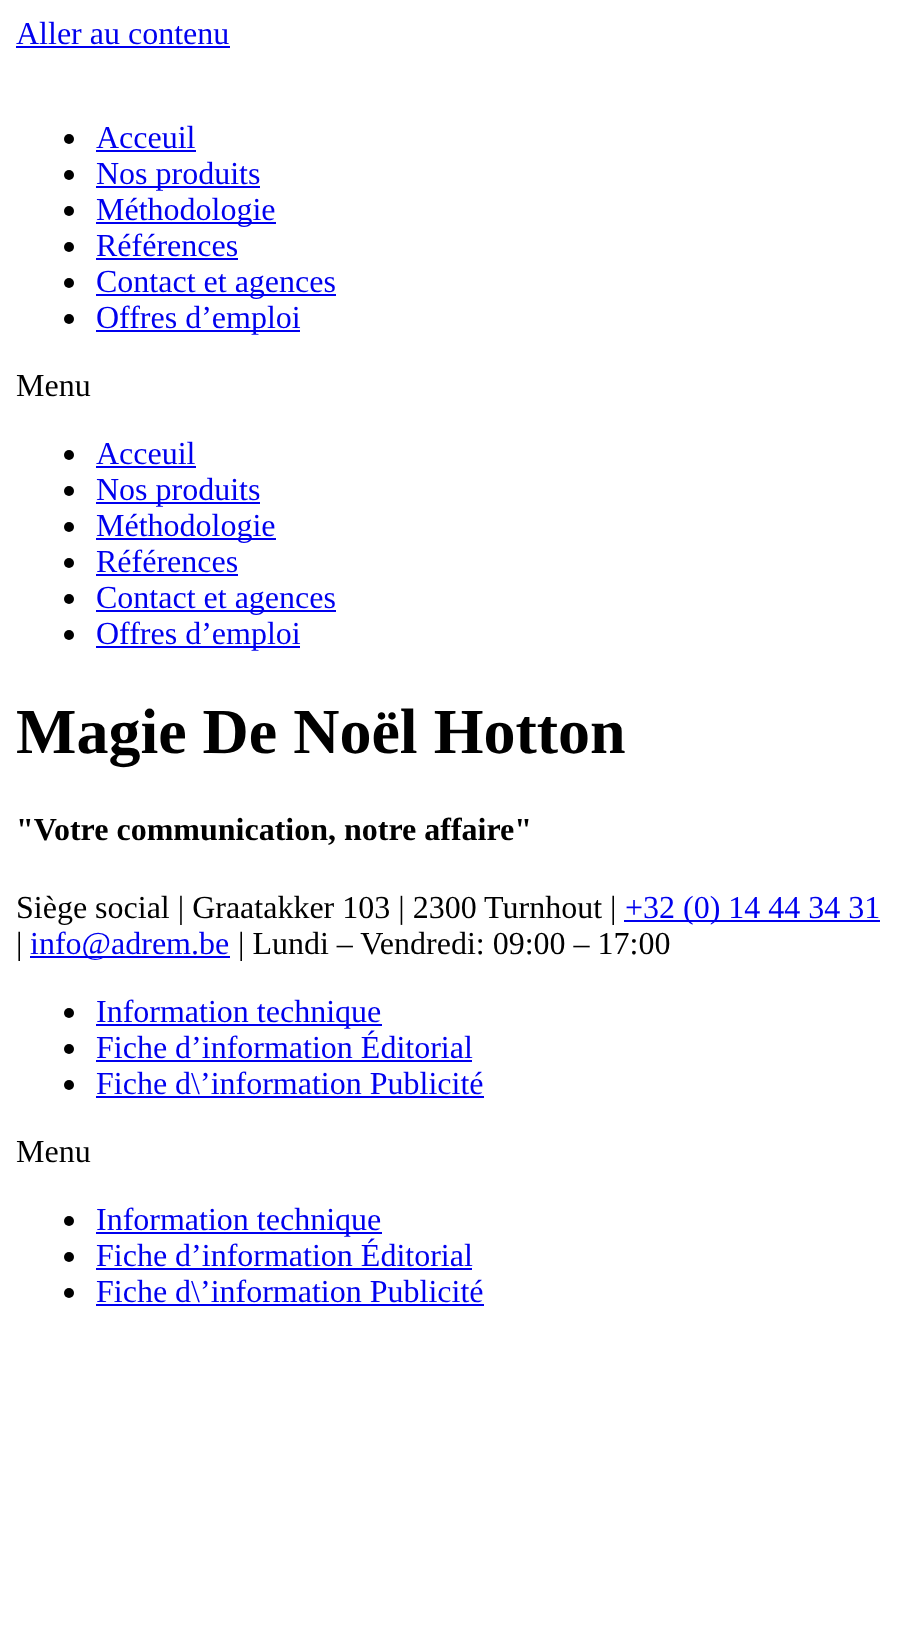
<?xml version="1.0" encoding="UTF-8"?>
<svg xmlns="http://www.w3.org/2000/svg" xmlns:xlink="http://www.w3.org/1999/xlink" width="906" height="1625">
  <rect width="100%" height="100%" fill="#ffffff" />
  <rect x="16" y="46" width="214" height="2" fill="#0000ee" />
  <circle cx="69" cy="139" r="5" fill="#000000" />
  <rect x="96" y="150" width="100" height="2" fill="#0000ee" />
  <circle cx="69" cy="175" r="5" fill="#000000" />
  <rect x="96" y="186" width="164" height="2" fill="#0000ee" />
  <circle cx="69" cy="211" r="5" fill="#000000" />
  <rect x="96" y="222" width="180" height="2" fill="#0000ee" />
  <circle cx="69" cy="247" r="5" fill="#000000" />
  <rect x="96" y="258" width="142" height="2" fill="#0000ee" />
  <circle cx="69" cy="283" r="5" fill="#000000" />
  <rect x="96" y="294" width="240" height="2" fill="#0000ee" />
  <circle cx="69" cy="319" r="5" fill="#000000" />
  <rect x="96" y="330" width="204" height="2" fill="#0000ee" />
  <circle cx="69" cy="455" r="5" fill="#000000" />
  <rect x="96" y="466" width="100" height="2" fill="#0000ee" />
  <circle cx="69" cy="491" r="5" fill="#000000" />
  <rect x="96" y="502" width="164" height="2" fill="#0000ee" />
  <circle cx="69" cy="527" r="5" fill="#000000" />
  <rect x="96" y="538" width="180" height="2" fill="#0000ee" />
  <circle cx="69" cy="563" r="5" fill="#000000" />
  <rect x="96" y="574" width="142" height="2" fill="#0000ee" />
  <circle cx="69" cy="599" r="5" fill="#000000" />
  <rect x="96" y="610" width="240" height="2" fill="#0000ee" />
  <circle cx="69" cy="635" r="5" fill="#000000" />
  <rect x="96" y="646" width="204" height="2" fill="#0000ee" />
  <rect x="624" y="920" width="256" height="2" fill="#0000ee" />
  <rect x="30" y="956" width="200" height="2" fill="#0000ee" />
  <circle cx="69" cy="1013" r="5" fill="#000000" />
  <rect x="96" y="1024" width="286" height="2" fill="#0000ee" />
  <circle cx="69" cy="1049" r="5" fill="#000000" />
  <rect x="96" y="1060" width="376" height="2" fill="#0000ee" />
  <circle cx="69" cy="1085" r="5" fill="#000000" />
  <rect x="96" y="1096" width="388" height="2" fill="#0000ee" />
  <circle cx="69" cy="1221" r="5" fill="#000000" />
  <rect x="96" y="1232" width="286" height="2" fill="#0000ee" />
  <circle cx="69" cy="1257" r="5" fill="#000000" />
  <rect x="96" y="1268" width="376" height="2" fill="#0000ee" />
  <circle cx="69" cy="1293" r="5" fill="#000000" />
  <rect x="96" y="1304" width="388" height="2" fill="#0000ee" />
  <text x="16" y="44" style="font-family: Liberation Serif; font-size: 32px; fill: #0000ee">Aller au contenu</text>
  <text x="96" y="148" style="font-family: Liberation Serif; font-size: 32px; fill: #0000ee">Acceuil</text>
  <text x="96" y="184" style="font-family: Liberation Serif; font-size: 32px; fill: #0000ee">Nos produits</text>
  <text x="96" y="220" style="font-family: Liberation Serif; font-size: 32px; fill: #0000ee">Méthodologie</text>
  <text x="96" y="256" style="font-family: Liberation Serif; font-size: 32px; fill: #0000ee">Références</text>
  <text x="96" y="292" style="font-family: Liberation Serif; font-size: 32px; fill: #0000ee">Contact et agences</text>
  <text x="96" y="328" style="font-family: Liberation Serif; font-size: 32px; fill: #0000ee">Offres d’emploi</text>
  <text x="16" y="396" style="font-family: Liberation Serif; font-size: 32px; fill: #000000">Menu</text>
  <text x="96" y="464" style="font-family: Liberation Serif; font-size: 32px; fill: #0000ee">Acceuil</text>
  <text x="96" y="500" style="font-family: Liberation Serif; font-size: 32px; fill: #0000ee">Nos produits</text>
  <text x="96" y="536" style="font-family: Liberation Serif; font-size: 32px; fill: #0000ee">Méthodologie</text>
  <text x="96" y="572" style="font-family: Liberation Serif; font-size: 32px; fill: #0000ee">Références</text>
  <text x="96" y="608" style="font-family: Liberation Serif; font-size: 32px; fill: #0000ee">Contact et agences</text>
  <text x="96" y="644" style="font-family: Liberation Serif; font-size: 32px; fill: #0000ee">Offres d’emploi</text>
  <text x="16" y="753" style="font-family: Liberation Serif; font-size: 64px; font-weight: bold; fill: #000000">Magie De Noël Hotton</text>
  <text x="16" y="840" style="font-family: Liberation Serif; font-size: 32px; font-weight: bold; fill: #000000">"Votre communication, notre affaire"</text>
  <text x="16" y="918" style="font-family: Liberation Serif; font-size: 32px; fill: #000000">Siège social | Graatakker 103 | 2300 Turnhout |</text>
  <text x="625" y="918" style="font-family: Liberation Serif; font-size: 32px; fill: #0000ee">+32 (0) 14 44 34 31</text>
  <text x="16" y="954" style="font-family: Liberation Serif; font-size: 32px; fill: #000000">|</text>
  <text x="30" y="954" style="font-family: Liberation Serif; font-size: 32px; fill: #0000ee">info@adrem.be</text>
  <text x="238" y="954" style="font-family: Liberation Serif; font-size: 32px; fill: #000000">| Lundi – Vendredi: 09:00 – 17:00</text>
  <text x="96" y="1022" style="font-family: Liberation Serif; font-size: 32px; fill: #0000ee">Information technique</text>
  <text x="96" y="1058" style="font-family: Liberation Serif; font-size: 32px; fill: #0000ee">Fiche d’information Éditorial</text>
  <text x="96" y="1094" style="font-family: Liberation Serif; font-size: 32px; fill: #0000ee">Fiche d\’information Publicité</text>
  <text x="16" y="1162" style="font-family: Liberation Serif; font-size: 32px; fill: #000000">Menu</text>
  <text x="96" y="1230" style="font-family: Liberation Serif; font-size: 32px; fill: #0000ee">Information technique</text>
  <text x="96" y="1266" style="font-family: Liberation Serif; font-size: 32px; fill: #0000ee">Fiche d’information Éditorial</text>
  <text x="96" y="1302" style="font-family: Liberation Serif; font-size: 32px; fill: #0000ee">Fiche d\’information Publicité</text>
</svg>
